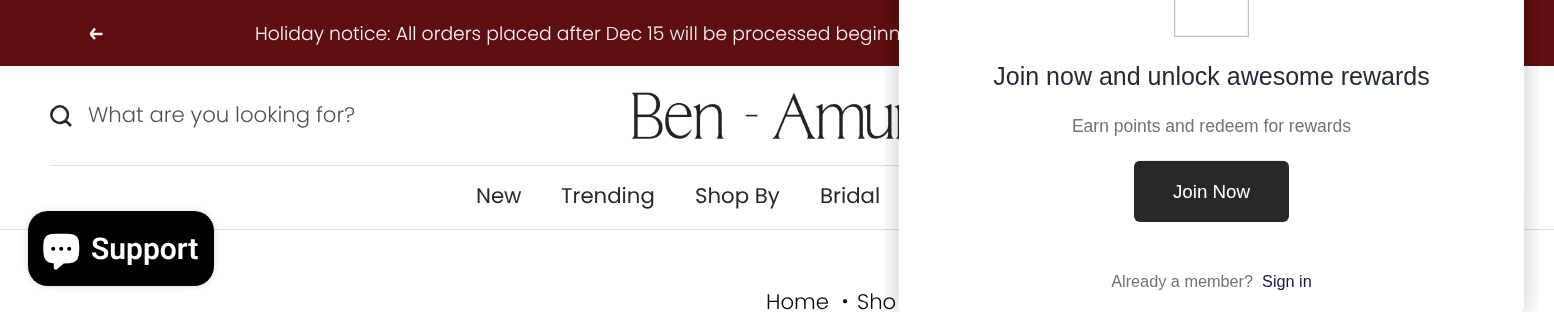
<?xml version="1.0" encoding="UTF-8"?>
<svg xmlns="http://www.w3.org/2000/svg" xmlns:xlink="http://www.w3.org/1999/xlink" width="1554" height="312">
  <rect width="100%" height="100%" fill="#ffffff" />
  <rect width="1554" height="66" fill="#5e0e0e" />
  <path d="M 102.5 34 h -12 m 0 0 l 4.5 5 m -4.5 -5 l 4.5 -5.5" fill="none" stroke="#f5f5f5" stroke-width="2.5" />
  <rect y="229" width="1554" height="1" fill="#dfdfdf" />
  <path d="M 65.5 120.5 c 7.5 -8 -4 -19.5 -11.5 -11.5 c -8 7.5 3.5 19 11.5 11.5 z m 0 0 l 5.5 5.5" fill="none" stroke="#282828" stroke-width="2.5" />
  <image x="631" y="92" width="268" height="47" xlink:href="image2.png" />
  <rect x="50" y="165" width="849" height="1" fill="#dfdfdf" />
  <rect x="28" y="211" width="186" height="75" rx="20" fill="#000000" fill-opacity="0.15" filter="blur(3px)" />
  <rect x="28" y="211" width="186" height="75" rx="20" fill="#000000" />
  <image x="43" y="233" width="37" height="37" xlink:href="image3.png" />
  <image x="842" y="299" width="6" height="5" xlink:href="image4.png" />
  <text x="255" y="40" style="font-family: Poppins; font-size: 18.75px; font-weight: 300; fill: #f5f5f5">Holiday notice: All orders placed after Dec 15 will be processed beginn</text>
  <text x="88" y="122" style="font-family: Poppins; font-size: 21.25px; font-weight: 300; fill: #535353">What are you looking for?</text>
  <text x="476" y="203" style="font-family: Poppins; font-size: 21.25px; fill: #282828">New</text>
  <text x="561" y="203" style="font-family: Poppins; font-size: 21.25px; fill: #282828">Trending</text>
  <text x="695" y="203" style="font-family: Poppins; font-size: 21.25px; fill: #282828">Shop By</text>
  <text x="820" y="203" style="font-family: Poppins; font-size: 21.25px; fill: #282828">Bridal</text>
  <text x="91" y="259" style="font-family: Roboto; font-size: 30px; font-weight: 600; fill: #ffffff">Support</text>
  <text x="766" y="309" style="font-family: Poppins; font-size: 21.25px; font-weight: 300; fill: #070707">Home</text>
  <text x="857" y="309" style="font-family: Poppins; font-size: 21.25px; font-weight: 300; fill: #070707">Sho</text>
  <image x="884" y="0" width="655" height="312" xlink:href="image1.png" />
</svg>
